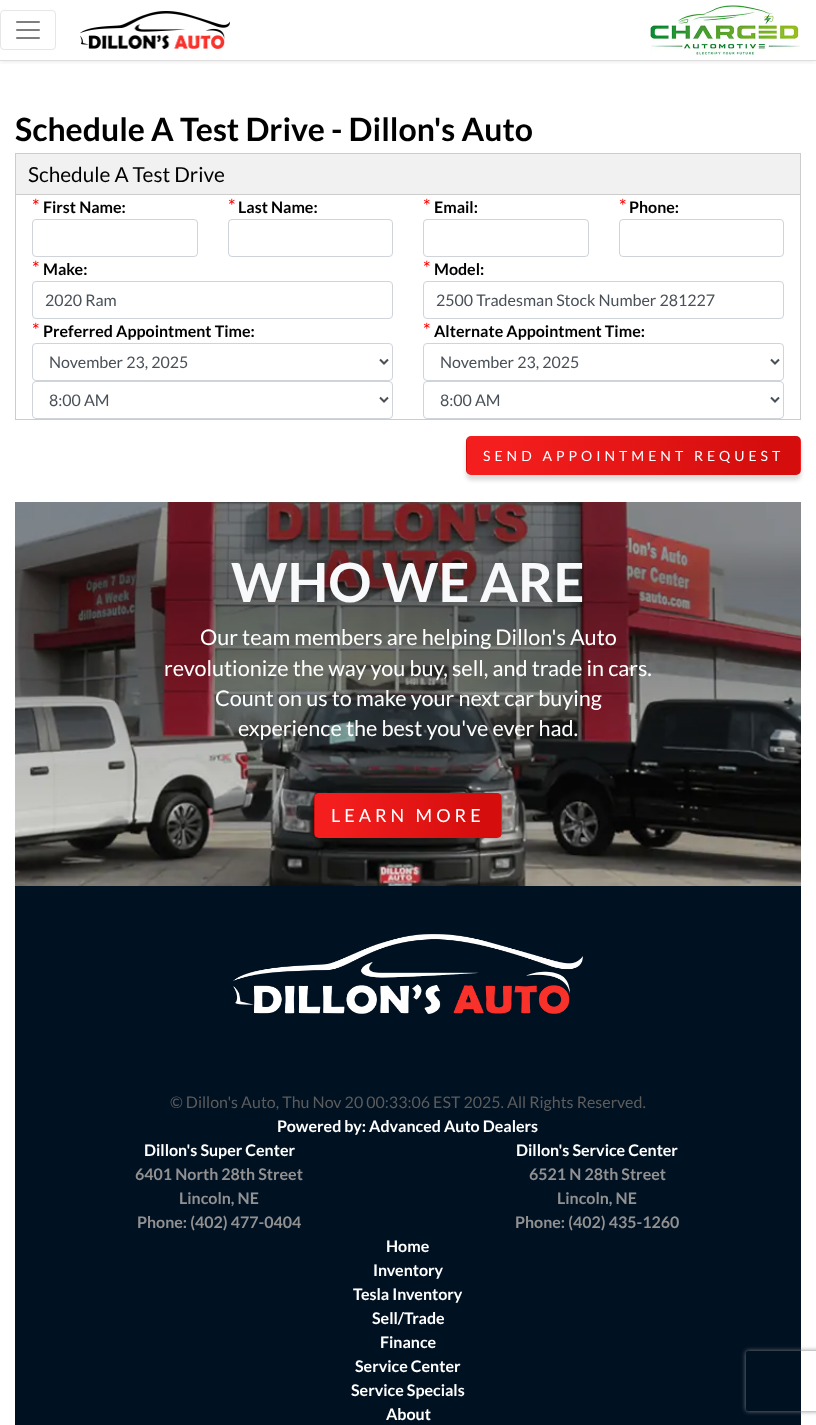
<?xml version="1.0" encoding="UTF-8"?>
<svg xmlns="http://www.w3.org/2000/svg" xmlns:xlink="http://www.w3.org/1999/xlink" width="816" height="1425">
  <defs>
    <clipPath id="clip1"><rect x="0" y="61" width="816" height="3" /></clipPath>
    <clipPath id="clip2"><rect x="466" y="436" width="335" height="39" rx="5" /></clipPath>
    <linearGradient id="g1" gradientUnits="userSpaceOnUse" x1="134" y1="456" x2="467" y2="456"><stop offset="0.1" stop-color="#f41e1e" /><stop offset="0.9" stop-color="#d50d0d" /></linearGradient>
    <linearGradient id="g2" gradientUnits="userSpaceOnUse" x1="467" y1="456" x2="800" y2="456"><stop offset="0.1" stop-color="#f41e1e" /><stop offset="0.9" stop-color="#d50d0d" /></linearGradient>
    <linearGradient id="g3" gradientUnits="userSpaceOnUse" x1="800" y1="456" x2="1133" y2="456"><stop offset="0.1" stop-color="#f41e1e" /><stop offset="0.9" stop-color="#d50d0d" /></linearGradient>
    <clipPath id="clip3"><rect x="314" y="793" width="188" height="45" rx="5" /></clipPath>
    <linearGradient id="g4" gradientUnits="userSpaceOnUse" x1="129" y1="816" x2="315" y2="816"><stop offset="0.1" stop-color="#f41e1e" /><stop offset="0.9" stop-color="#d50d0d" /></linearGradient>
    <linearGradient id="g5" gradientUnits="userSpaceOnUse" x1="315" y1="816" x2="501" y2="816"><stop offset="0.1" stop-color="#f41e1e" /><stop offset="0.9" stop-color="#d50d0d" /></linearGradient>
    <linearGradient id="g6" gradientUnits="userSpaceOnUse" x1="501" y1="816" x2="687" y2="816"><stop offset="0.1" stop-color="#f41e1e" /><stop offset="0.9" stop-color="#d50d0d" /></linearGradient>
    <clipPath id="clip4"><path d="M 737 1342 h 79 v 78 h -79 z m 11 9 h 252 c 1 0 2 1 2 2 v 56 c 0 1 -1 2 -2 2 h -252 c -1 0 -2 -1 -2 -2 v -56 c 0 -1 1 -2 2 -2 z" clip-rule="evenodd" /></clipPath>
  </defs>
  <rect width="100%" height="100%" fill="#ffffff" />
  <g clip-path="url(#clip1)">
    <rect y="1" width="816" height="61" fill="#333333" fill-opacity="0.1" filter="blur(2px)" />
  </g>
  <rect y="60" width="816" height="1" fill="#dddddd" />
  <rect x="0.5" y="10.5" width="55" height="39" rx="3.5" fill="none" stroke="#e6e6e6" />
  <image x="16" y="21" width="24" height="18" xlink:href="image1.png" />
  <image x="80" y="11" width="150" height="38" xlink:href="image2.png" />
  <image x="650" y="5" width="150" height="50" xlink:href="image3.png" />
  <rect x="16" y="154" width="784" height="40" fill="#f1f1f1" />
  <rect x="15" y="153" width="786" height="1" fill="#cccccc" />
  <rect x="800" y="153" width="1" height="41" fill="#cccccc" />
  <rect x="15" y="153" width="1" height="41" fill="#cccccc" />
  <rect x="15.5" y="194.5" width="785" height="225" fill="none" stroke="#cccccc" />
  <rect x="32.5" y="219.5" width="165" height="37" rx="3.5" fill="none" stroke="#ced4da" />
  <rect x="228.5" y="219.5" width="164" height="37" rx="3.5" fill="none" stroke="#ced4da" />
  <rect x="423.5" y="219.5" width="165" height="37" rx="3.5" fill="none" stroke="#ced4da" />
  <rect x="619.5" y="219.5" width="164" height="37" rx="3.5" fill="none" stroke="#ced4da" />
  <rect x="32.5" y="281.5" width="360" height="37" rx="3.5" fill="none" stroke="#ced4da" />
  <rect x="423.5" y="281.5" width="360" height="37" rx="3.5" fill="none" stroke="#ced4da" />
  <rect x="32.5" y="343.5" width="360" height="37" rx="3.5" fill="none" stroke="#ced4da" />
  <path d="M 380 359.5 l 4 4 l 4 -4" fill="none" stroke="#495057" stroke-width="2" />
  <rect x="32.5" y="381.5" width="360" height="37" rx="3.5" fill="none" stroke="#ced4da" />
  <path d="M 380 397.5 l 4 4 l 4 -4" fill="none" stroke="#495057" stroke-width="2" />
  <rect x="423.5" y="343.5" width="360" height="37" rx="3.5" fill="none" stroke="#ced4da" />
  <path d="M 771 359.5 l 4 4 l 4 -4" fill="none" stroke="#495057" stroke-width="2" />
  <rect x="423.5" y="381.5" width="360" height="37" rx="3.5" fill="none" stroke="#ced4da" />
  <path d="M 771 397.5 l 4 4 l 4 -4" fill="none" stroke="#495057" stroke-width="2" />
  <rect x="466" y="441" width="335" height="39" rx="5" fill="#000000" fill-opacity="0.15" filter="blur(2px)" />
  <g clip-path="url(#clip2)">
    <rect x="466" y="436" width="1" height="39" fill="url(#g1)" />
    <rect x="467" y="436" width="333" height="39" fill="url(#g2)" />
    <rect x="800" y="436" width="1" height="39" fill="url(#g3)" />
  </g>
  <image x="15" y="502" width="786" height="384" xlink:href="image4.png" />
  <rect x="314" y="798" width="188" height="45" rx="5" fill="#000000" fill-opacity="0.15" filter="blur(2px)" />
  <g clip-path="url(#clip3)">
    <rect x="314" y="793" width="1" height="45" fill="url(#g4)" />
    <rect x="315" y="793" width="186" height="45" fill="url(#g5)" />
    <rect x="501" y="793" width="1" height="45" fill="url(#g6)" />
  </g>
  <rect x="15" y="886" width="786" height="539" fill="#001122" />
  <image x="233" y="934" width="350" height="80" xlink:href="image5.png" />
  <g clip-path="url(#clip4)">
    <rect x="746" y="1351" width="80" height="60" rx="2" fill="#808080" filter="blur(2.5px)" />
  </g>
  <text x="15" y="141" style="font-family: Lato; font-size: 32px; font-weight: bold; fill: #000000">Schedule A Test Drive - Dillon's Auto</text>
  <text x="28" y="182" style="font-family: Lato; font-size: 20.75px; fill: #000000">Schedule A Test Drive</text>
  <text x="32" y="213" style="font-family: Lato; font-size: 19px; fill: #ff0000">*</text>
  <text x="43" y="213" style="font-family: Lato; font-size: 16px; font-weight: bold; fill: #000000">First Name:</text>
  <text x="228" y="213" style="font-family: Lato; font-size: 19px; fill: #ff0000">*</text>
  <text x="238" y="213" style="font-family: Lato; font-size: 16px; font-weight: bold; fill: #000000">Last Name:</text>
  <text x="423" y="213" style="font-family: Lato; font-size: 19px; fill: #ff0000">*</text>
  <text x="434" y="213" style="font-family: Lato; font-size: 16px; font-weight: bold; fill: #000000">Email:</text>
  <text x="619" y="213" style="font-family: Lato; font-size: 19px; fill: #ff0000">*</text>
  <text x="629" y="213" style="font-family: Lato; font-size: 16px; font-weight: bold; fill: #000000">Phone:</text>
  <text x="32" y="275" style="font-family: Lato; font-size: 19px; fill: #ff0000">*</text>
  <text x="43" y="275" style="font-family: Lato; font-size: 16px; font-weight: bold; fill: #000000">Make:</text>
  <text x="45" y="306" style="font-family: Lato; font-size: 16px; fill: #495057">2020 Ram</text>
  <text x="423" y="275" style="font-family: Lato; font-size: 19px; fill: #ff0000">*</text>
  <text x="434" y="275" style="font-family: Lato; font-size: 16px; font-weight: bold; fill: #000000">Model:</text>
  <text x="436" y="306" style="font-family: Lato; font-size: 16px; fill: #495057">2500 Tradesman Stock Number 281227</text>
  <text x="32" y="337" style="font-family: Lato; font-size: 19px; fill: #ff0000">*</text>
  <text x="43" y="337" style="font-family: Lato; font-size: 16px; font-weight: bold; fill: #000000">Preferred Appointment Time:</text>
  <text x="49" y="368" style="font-family: Lato; font-size: 16px; fill: #495057">November 23, 2025</text>
  <text x="49" y="406" style="font-family: Lato; font-size: 16px; fill: #495057">8:00 AM</text>
  <text x="423" y="337" style="font-family: Lato; font-size: 19px; fill: #ff0000">*</text>
  <text x="434" y="337" style="font-family: Lato; font-size: 16px; font-weight: bold; fill: #000000">Alternate Appointment Time:</text>
  <text x="440" y="368" style="font-family: Lato; font-size: 16px; fill: #495057">November 23, 2025</text>
  <text x="440" y="406" style="font-family: Lato; font-size: 16px; fill: #495057">8:00 AM</text>
  <text x="483" y="461" style="font-family: Lato; font-size: 14px; letter-spacing: 4px; fill: #ffffff">SEND APPOINTMENT REQUEST</text>
  <text x="231" y="602" style="font-family: Lato; font-size: 54px; font-weight: bold; fill: #f8f9fa">WHO WE ARE</text>
  <text x="200" y="645" style="font-family: Lato; font-size: 21.6px; fill: #ffffff">Our team members are helping Dillon's Auto</text>
  <text x="164" y="676" style="font-family: Lato; font-size: 21.6px; fill: #ffffff">revolutionize the way you buy, sell, and trade in cars.</text>
  <text x="215" y="706" style="font-family: Lato; font-size: 21.6px; fill: #ffffff">Count on us to make your next car buying</text>
  <text x="238" y="736" style="font-family: Lato; font-size: 21.6px; fill: #ffffff">experience the best you've ever had.</text>
  <text x="331" y="822" style="font-family: Lato; font-size: 18px; letter-spacing: 4px; fill: #ffffff">LEARN MORE</text>
  <text x="170" y="1108" style="font-family: Lato; font-size: 16px; fill: #5c5c5c">© Dillon's Auto, Thu Nov 20 00:33:06 EST 2025. All Rights Reserved.</text>
  <text x="277" y="1132" style="font-family: Lato; font-size: 16px; font-weight: bold; fill: #ffffff">Powered by: Advanced Auto Dealers</text>
  <text x="144" y="1156" style="font-family: Lato; font-size: 16px; font-weight: bold; fill: #ffffff">Dillon's Super Center</text>
  <text x="135" y="1180" style="font-family: Lato; font-size: 16px; font-weight: bold; fill: #919191">6401 North 28th Street</text>
  <text x="179" y="1204" style="font-family: Lato; font-size: 16px; font-weight: bold; fill: #919191">Lincoln, NE</text>
  <text x="137" y="1228" style="font-family: Lato; font-size: 16px; font-weight: bold; fill: #919191">Phone: (402) 477-0404</text>
  <text x="516" y="1156" style="font-family: Lato; font-size: 16px; font-weight: bold; fill: #ffffff">Dillon's Service Center</text>
  <text x="529" y="1180" style="font-family: Lato; font-size: 16px; font-weight: bold; fill: #919191">6521 N 28th Street</text>
  <text x="557" y="1204" style="font-family: Lato; font-size: 16px; font-weight: bold; fill: #919191">Lincoln, NE</text>
  <text x="515" y="1228" style="font-family: Lato; font-size: 16px; font-weight: bold; fill: #919191">Phone: (402) 435-1260</text>
  <text x="386" y="1252" style="font-family: Lato; font-size: 16px; font-weight: bold; fill: #ffffff">Home</text>
  <text x="373" y="1276" style="font-family: Lato; font-size: 16px; font-weight: bold; fill: #ffffff">Inventory</text>
  <text x="353" y="1300" style="font-family: Lato; font-size: 16px; font-weight: bold; fill: #ffffff">Tesla Inventory</text>
  <text x="372" y="1324" style="font-family: Lato; font-size: 16px; font-weight: bold; fill: #ffffff">Sell/Trade</text>
  <text x="380" y="1348" style="font-family: Lato; font-size: 16px; font-weight: bold; fill: #ffffff">Finance</text>
  <text x="355" y="1372" style="font-family: Lato; font-size: 16px; font-weight: bold; fill: #ffffff">Service Center</text>
  <text x="351" y="1396" style="font-family: Lato; font-size: 16px; font-weight: bold; fill: #ffffff">Service Specials</text>
  <text x="386" y="1420" style="font-family: Lato; font-size: 16px; font-weight: bold; fill: #ffffff">About</text>
</svg>
